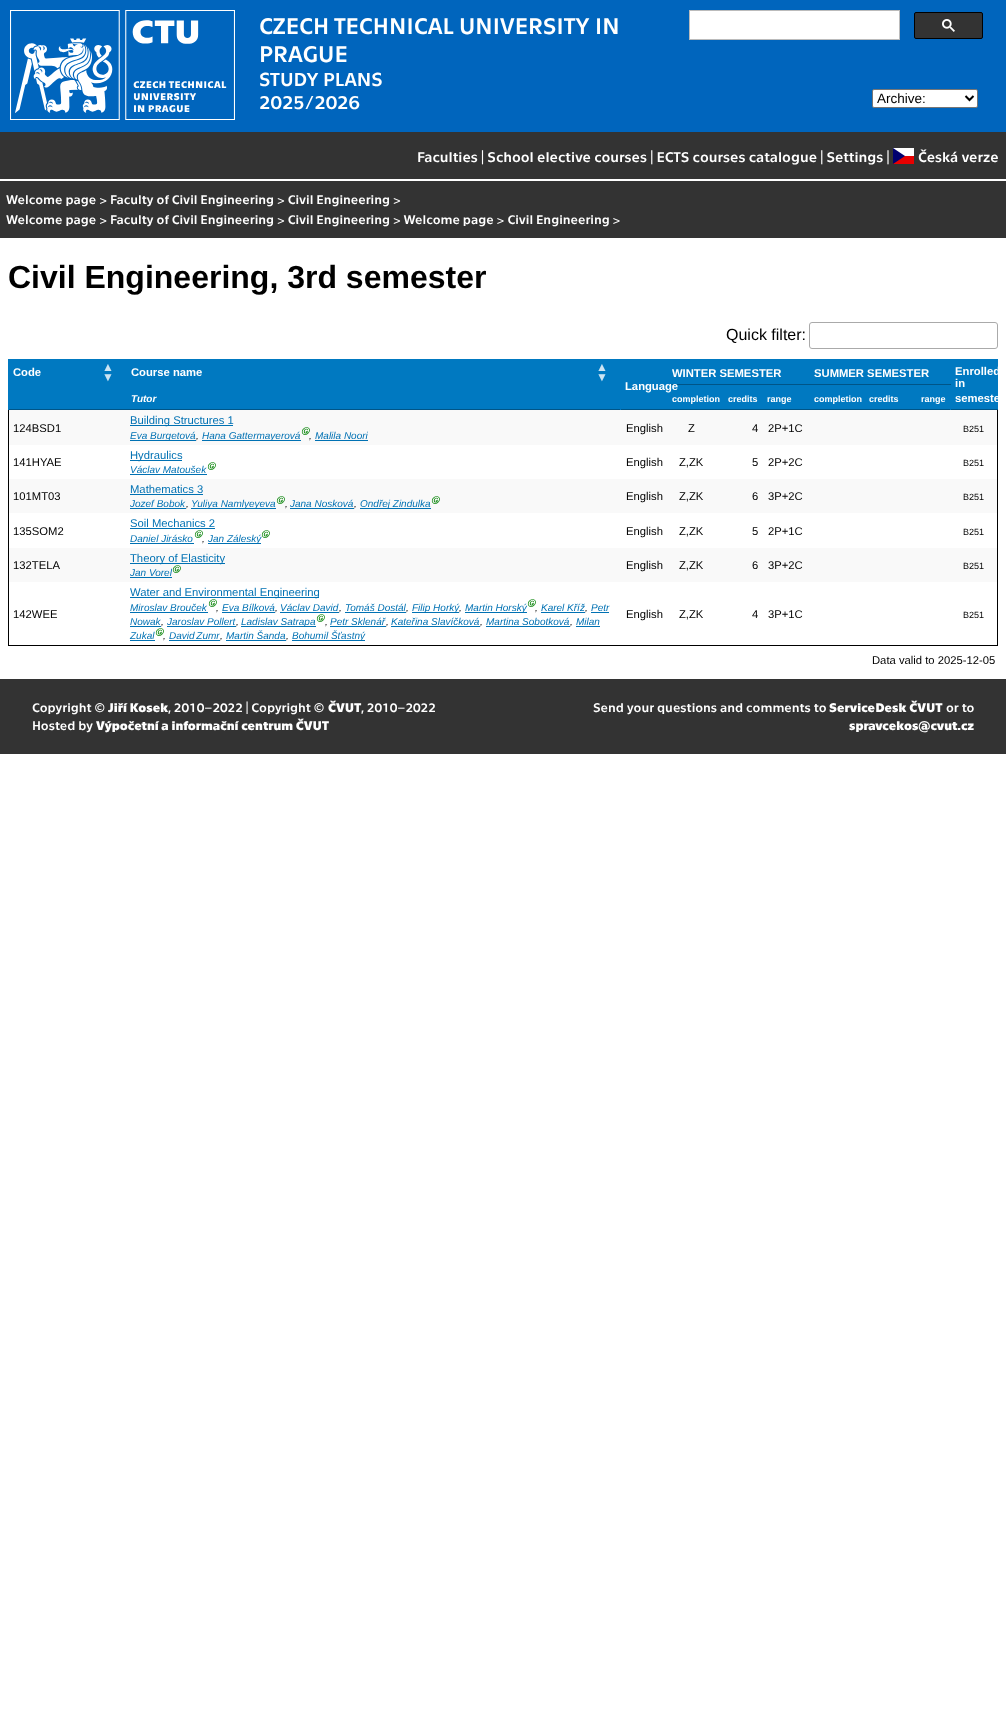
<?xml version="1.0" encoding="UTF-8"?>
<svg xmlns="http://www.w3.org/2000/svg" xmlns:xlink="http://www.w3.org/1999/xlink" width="1006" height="1715">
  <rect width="100%" height="100%" fill="#ffffff" />
  <rect width="1006" height="132" fill="#0065bd" />
  <image x="10" y="10" width="225" height="110" xlink:href="image1.png" />
  <rect x="689.5" y="10.5" width="210" height="29" fill="#ffffff" stroke="#bbbbbb" />
  <rect x="914.5" y="12.5" width="68" height="26" rx="1.5" fill="#333333" stroke="#000000" />
  <image x="942" y="19" width="13" height="13" xlink:href="image2.png" />
  <rect x="872.5" y="89.5" width="105" height="18" rx="1.5" fill="#ffffff" stroke="#767676" />
  <path d="M 965.5 96 l 4 4 l 4 -4" fill="none" stroke="#000000" stroke-width="2" />
  <rect y="132" width="1006" height="47" fill="#333333" />
  <rect x="893" y="156" width="21" height="8" fill="#e80000" />
  <rect x="893" y="148" width="21" height="8" fill="#ffffff" />
  <path d="M 893 148 l 12 8 l -12 8 z" fill="#00006f" fill-rule="evenodd" />
  <rect y="181" width="1006" height="57" fill="#333333" />
  <rect x="809.5" y="322.5" width="188" height="26" rx="2.5" fill="none" stroke="#aaaaaa" />
  <rect x="997" y="410" width="1" height="236" fill="#000000" />
  <rect x="8" y="645" width="990" height="1" fill="#000000" />
  <rect x="8" y="410" width="1" height="236" fill="#000000" />
  <rect x="950" y="359" width="48" height="1" fill="#0079c1" />
  <rect x="903" y="409" width="95" height="1" fill="#005587" />
  <rect x="950" y="359" width="1" height="51" fill="#0079c1" />
  <rect x="809" y="359" width="142" height="1" fill="#0079c1" />
  <rect x="903" y="384" width="1" height="26" fill="#0079c1" />
  <rect x="856" y="409" width="48" height="1" fill="#005587" />
  <rect x="856" y="384" width="1" height="26" fill="#0079c1" />
  <rect x="809" y="409" width="48" height="1" fill="#005587" />
  <rect x="809" y="384" width="1" height="26" fill="#0079c1" />
  <rect x="809" y="384" width="142" height="1" fill="#005587" />
  <rect x="809" y="359" width="1" height="26" fill="#0079c1" />
  <rect x="667" y="359" width="143" height="1" fill="#0079c1" />
  <rect x="621" y="409" width="47" height="1" fill="#005587" />
  <rect x="762" y="409" width="48" height="1" fill="#005587" />
  <rect x="762" y="384" width="1" height="26" fill="#0079c1" />
  <rect x="714" y="409" width="49" height="1" fill="#005587" />
  <rect x="714" y="384" width="1" height="26" fill="#0079c1" />
  <rect x="667" y="409" width="48" height="1" fill="#005587" />
  <rect x="667" y="384" width="1" height="26" fill="#0079c1" />
  <rect x="667" y="384" width="143" height="1" fill="#005587" />
  <rect x="667" y="359" width="1" height="26" fill="#0079c1" />
  <rect x="8" y="359" width="660" height="1" fill="#0079c1" />
  <rect x="8" y="384" width="1" height="26" fill="#0079c1" />
  <rect x="8" y="359" width="1" height="26" fill="#0079c1" />
  <rect x="9" y="409" width="612" height="1" fill="#005587" />
  <rect x="126" y="384" width="1" height="26" fill="#0079c1" />
  <rect x="126" y="360" width="495" height="25" fill="#0079c1" />
  <rect x="668" y="360" width="141" height="24" fill="#0079c1" />
  <rect x="810" y="360" width="140" height="24" fill="#0079c1" />
  <rect x="951" y="360" width="46" height="49" fill="#0079c1" />
  <rect x="997" y="359" width="1" height="51" fill="#0079c1" />
  <rect x="997" y="409" width="1" height="1" fill="#005587" />
  <rect x="621" y="360" width="46" height="49" fill="#0079c1" />
  <rect x="620" y="385" width="1" height="25" fill="#0079c1" />
  <rect x="9" y="360" width="117" height="49" fill="#0079c1" />
  <rect x="127" y="385" width="493" height="24" fill="#0079c1" />
  <rect x="126" y="409" width="1" height="1" fill="#005587" />
  <rect x="668" y="385" width="46" height="24" fill="#0079c1" />
  <rect x="667" y="409" width="1" height="1" fill="#005587" />
  <rect x="715" y="385" width="47" height="24" fill="#0079c1" />
  <rect x="763" y="385" width="46" height="24" fill="#0079c1" />
  <rect x="810" y="385" width="46" height="24" fill="#0079c1" />
  <rect x="857" y="385" width="46" height="24" fill="#0079c1" />
  <rect x="904" y="385" width="46" height="24" fill="#0079c1" />
  <rect x="9" y="410" width="988" height="35" fill="#f9f9f9" />
  <rect x="130" y="425" width="103" height="1" fill="#0071b3" />
  <rect x="130" y="440" width="66" height="1" fill="#0071b3" />
  <rect x="202" y="440" width="99" height="1" fill="#0071b3" />
  <rect x="315" y="440" width="53" height="1" fill="#0071b3" />
  <rect x="130" y="460" width="52" height="1" fill="#0071b3" />
  <rect x="130" y="474" width="77" height="1" fill="#0071b3" />
  <rect x="9" y="479" width="988" height="34" fill="#f9f9f9" />
  <rect x="130" y="494" width="73" height="1" fill="#0071b3" />
  <rect x="130" y="508" width="56" height="1" fill="#0071b3" />
  <rect x="191" y="508" width="85" height="1" fill="#0071b3" />
  <rect x="290" y="508" width="64" height="1" fill="#0071b3" />
  <rect x="360" y="508" width="71" height="1" fill="#0071b3" />
  <rect x="130" y="528" width="85" height="1" fill="#0071b3" />
  <rect x="130" y="543" width="64" height="1" fill="#0071b3" />
  <rect x="208" y="543" width="53" height="1" fill="#0071b3" />
  <rect x="9" y="548" width="988" height="34" fill="#f9f9f9" />
  <rect x="130" y="563" width="95" height="1" fill="#0071b3" />
  <rect x="130" y="577" width="42" height="1" fill="#0071b3" />
  <rect x="130" y="597" width="189" height="1" fill="#0071b3" />
  <rect x="130" y="612" width="78" height="1" fill="#0071b3" />
  <rect x="222" y="612" width="53" height="1" fill="#0071b3" />
  <rect x="280" y="612" width="59" height="1" fill="#0071b3" />
  <rect x="345" y="612" width="61" height="1" fill="#0071b3" />
  <rect x="412" y="612" width="47" height="1" fill="#0071b3" />
  <rect x="465" y="612" width="62" height="1" fill="#0071b3" />
  <rect x="541" y="612" width="44" height="1" fill="#0071b3" />
  <rect x="591" y="612" width="18" height="1" fill="#0071b3" />
  <rect x="130" y="626" width="31" height="1" fill="#0071b3" />
  <rect x="167" y="626" width="69" height="1" fill="#0071b3" />
  <rect x="241" y="626" width="75" height="1" fill="#0071b3" />
  <rect x="330" y="626" width="56" height="1" fill="#0071b3" />
  <rect x="391" y="626" width="89" height="1" fill="#0071b3" />
  <rect x="486" y="626" width="84" height="1" fill="#0071b3" />
  <rect x="576" y="626" width="24" height="1" fill="#0071b3" />
  <rect x="130" y="640" width="25" height="1" fill="#0071b3" />
  <rect x="169" y="640" width="51" height="1" fill="#0071b3" />
  <rect x="226" y="640" width="60" height="1" fill="#0071b3" />
  <rect x="292" y="640" width="73" height="1" fill="#0071b3" />
  <rect y="679" width="1006" height="75" fill="#333333" />
  <text x="259" y="34" style="font-family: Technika; font-size: 23px; fill: #ffffff">CZECH TECHNICAL UNIVERSITY IN</text>
  <text x="259" y="62" style="font-family: Technika; font-size: 23px; fill: #ffffff">PRAGUE</text>
  <text x="259" y="86" style="font-family: Technika; font-size: 19.25px; fill: #ffffff">STUDY PLANS</text>
  <text x="259" y="109" style="font-family: Technika; font-size: 19.25px; fill: #ffffff">2025/2026</text>
  <text x="877" y="103" style="font-family: Liberation Sans; font-size: 13.5px; fill: #000000">Archive:</text>
  <text x="417" y="162" style="font-family: Technika; font-size: 14.4px; fill: #ffffff">Faculties | School elective courses | ECTS courses catalogue | Settings |</text>
  <text x="918" y="162" style="font-family: Technika; font-size: 14.4px; fill: #ffffff">Česká verze</text>
  <text x="6" y="204" style="font-family: Technika; font-size: 12.8px; fill: #ffffff">Welcome page &gt; Faculty of Civil Engineering &gt; Civil Engineering &gt;</text>
  <text x="6" y="224" style="font-family: Technika; font-size: 12.8px; fill: #ffffff">Welcome page &gt; Faculty of Civil Engineering &gt; Civil Engineering &gt; Welcome page &gt; Civil Engineering &gt;</text>
  <text x="8" y="288" style="font-family: Liberation Sans; font-size: 32px; font-weight: bold; fill: #000000">Civil Engineering, 3rd semester</text>
  <text x="726" y="340" style="font-family: Liberation Sans; font-size: 16px; fill: #000000">Quick filter:</text>
  <text x="13" y="376" style="font-family: Liberation Sans; font-size: 11.25px; font-weight: bold; fill: #ffffff">Code</text>
  <text x="102" y="371" style="font-family: Liberation Sans; font-size: 12px; font-weight: bold; fill: #cce4f3">▲</text>
  <text x="102" y="381" style="font-family: Liberation Sans; font-size: 12px; font-weight: bold; fill: #cce4f3">▼</text>
  <text x="131" y="376" style="font-family: Liberation Sans; font-size: 11.25px; font-weight: bold; fill: #ffffff">Course name</text>
  <text x="596" y="371" style="font-family: Liberation Sans; font-size: 12px; font-weight: bold; fill: #cce4f3">▲</text>
  <text x="596" y="381" style="font-family: Liberation Sans; font-size: 12px; font-weight: bold; fill: #cce4f3">▼</text>
  <text x="672" y="377" style="font-family: Liberation Sans; font-size: 11.25px; font-weight: bold; fill: #ffffff">WINTER SEMESTER</text>
  <text x="814" y="377" style="font-family: Liberation Sans; font-size: 11.25px; font-weight: bold; fill: #ffffff">SUMMER SEMESTER</text>
  <text x="955" y="375" style="font-family: Liberation Sans; font-size: 11.25px; font-weight: bold; fill: #ffffff">Enrolled</text>
  <text x="955" y="387" style="font-family: Liberation Sans; font-size: 11.25px; font-weight: bold; fill: #ffffff">in</text>
  <text x="955" y="402" style="font-family: Liberation Sans; font-size: 11.25px; font-weight: bold; fill: #ffffff">semeste</text>
  <text x="625" y="390" style="font-family: Liberation Sans; font-size: 11.25px; font-weight: bold; fill: #ffffff">Language</text>
  <text x="131" y="402" style="font-family: Liberation Sans; font-size: 10px; font-weight: bold; font-style: italic; fill: #ffffff">Tutor</text>
  <text x="672" y="402" style="font-family: Liberation Sans; font-size: 9px; font-weight: bold; fill: #ffffff">completion</text>
  <text x="728" y="402" style="font-family: Liberation Sans; font-size: 9px; font-weight: bold; fill: #ffffff">credits</text>
  <text x="767" y="402" style="font-family: Liberation Sans; font-size: 9px; font-weight: bold; fill: #ffffff">range</text>
  <text x="814" y="402" style="font-family: Liberation Sans; font-size: 9px; font-weight: bold; fill: #ffffff">completion</text>
  <text x="869" y="402" style="font-family: Liberation Sans; font-size: 9px; font-weight: bold; fill: #ffffff">credits</text>
  <text x="921" y="402" style="font-family: Liberation Sans; font-size: 9px; font-weight: bold; fill: #ffffff">range</text>
  <text x="13" y="432" style="font-family: Liberation Sans; font-size: 11.25px; fill: #000000">124BSD1</text>
  <text x="130" y="424" style="font-family: Liberation Sans; font-size: 11.25px; fill: #0071b3">Building Structures 1</text>
  <text x="130" y="439" style="font-family: Liberation Sans; font-size: 10px; font-style: italic; fill: #0071b3">Eva Burgetová</text>
  <text x="202" y="439" style="font-family: Liberation Sans; font-size: 10px; font-style: italic; fill: #0071b3">Hana Gattermayerová</text>
  <text x="301" y="434" style="font-family: WenQuanYi Zen Hei; font-size: 8px; font-weight: bold; font-style: italic; fill: #008000">Ⓖ</text>
  <text x="315" y="439" style="font-family: Liberation Sans; font-size: 10px; font-style: italic; fill: #0071b3">Malila Noori</text>
  <text x="196" y="439" style="font-family: Liberation Sans; font-size: 10px; font-style: italic; fill: #000000">,</text>
  <text x="309" y="439" style="font-family: Liberation Sans; font-size: 10px; font-style: italic; fill: #000000">,</text>
  <text x="626" y="432" style="font-family: Liberation Sans; font-size: 11.25px; fill: #000000">English</text>
  <text x="688" y="432" style="font-family: Liberation Sans; font-size: 11.25px; fill: #000000">Z</text>
  <text x="752" y="432" style="font-family: Liberation Sans; font-size: 11.25px; fill: #000000">4</text>
  <text x="768" y="432" style="font-family: Liberation Sans; font-size: 11.25px; fill: #000000">2P+1C</text>
  <text x="963" y="432" style="font-family: Liberation Sans; font-size: 9px; fill: #000000">B251</text>
  <text x="13" y="466" style="font-family: Liberation Sans; font-size: 11.25px; fill: #000000">141HYAE</text>
  <text x="130" y="459" style="font-family: Liberation Sans; font-size: 11.25px; fill: #0071b3">Hydraulics</text>
  <text x="130" y="473" style="font-family: Liberation Sans; font-size: 10px; font-style: italic; fill: #0071b3">Václav Matoušek</text>
  <text x="207" y="469" style="font-family: WenQuanYi Zen Hei; font-size: 8px; font-weight: bold; font-style: italic; fill: #008000">Ⓖ</text>
  <text x="626" y="466" style="font-family: Liberation Sans; font-size: 11.25px; fill: #000000">English</text>
  <text x="679" y="466" style="font-family: Liberation Sans; font-size: 11.25px; fill: #000000">Z,ZK</text>
  <text x="752" y="466" style="font-family: Liberation Sans; font-size: 11.25px; fill: #000000">5</text>
  <text x="768" y="466" style="font-family: Liberation Sans; font-size: 11.25px; fill: #000000">2P+2C</text>
  <text x="963" y="466" style="font-family: Liberation Sans; font-size: 9px; fill: #000000">B251</text>
  <text x="13" y="500" style="font-family: Liberation Sans; font-size: 11.25px; fill: #000000">101MT03</text>
  <text x="130" y="493" style="font-family: Liberation Sans; font-size: 11.25px; fill: #0071b3">Mathematics 3</text>
  <text x="130" y="507" style="font-family: Liberation Sans; font-size: 10px; font-style: italic; fill: #0071b3">Jozef Bobok</text>
  <text x="191" y="507" style="font-family: Liberation Sans; font-size: 10px; font-style: italic; fill: #0071b3">Yuliya Namlyeyeva</text>
  <text x="276" y="503" style="font-family: WenQuanYi Zen Hei; font-size: 8px; font-weight: bold; font-style: italic; fill: #008000">Ⓖ</text>
  <text x="290" y="507" style="font-family: Liberation Sans; font-size: 10px; font-style: italic; fill: #0071b3">Jana Nosková</text>
  <text x="360" y="507" style="font-family: Liberation Sans; font-size: 10px; font-style: italic; fill: #0071b3">Ondřej Zindulka</text>
  <text x="431" y="503" style="font-family: WenQuanYi Zen Hei; font-size: 8px; font-weight: bold; font-style: italic; fill: #008000">Ⓖ</text>
  <text x="186" y="507" style="font-family: Liberation Sans; font-size: 10px; font-style: italic; fill: #000000">,</text>
  <text x="285" y="507" style="font-family: Liberation Sans; font-size: 10px; font-style: italic; fill: #000000">,</text>
  <text x="354" y="507" style="font-family: Liberation Sans; font-size: 10px; font-style: italic; fill: #000000">,</text>
  <text x="626" y="500" style="font-family: Liberation Sans; font-size: 11.25px; fill: #000000">English</text>
  <text x="679" y="500" style="font-family: Liberation Sans; font-size: 11.25px; fill: #000000">Z,ZK</text>
  <text x="752" y="500" style="font-family: Liberation Sans; font-size: 11.25px; fill: #000000">6</text>
  <text x="768" y="500" style="font-family: Liberation Sans; font-size: 11.25px; fill: #000000">3P+2C</text>
  <text x="963" y="500" style="font-family: Liberation Sans; font-size: 9px; fill: #000000">B251</text>
  <text x="13" y="535" style="font-family: Liberation Sans; font-size: 11.25px; fill: #000000">135SOM2</text>
  <text x="130" y="527" style="font-family: Liberation Sans; font-size: 11.25px; fill: #0071b3">Soil Mechanics 2</text>
  <text x="130" y="542" style="font-family: Liberation Sans; font-size: 10px; font-style: italic; fill: #0071b3">Daniel Jirásko</text>
  <text x="194" y="537" style="font-family: WenQuanYi Zen Hei; font-size: 8px; font-weight: bold; font-style: italic; fill: #008000">Ⓖ</text>
  <text x="208" y="542" style="font-family: Liberation Sans; font-size: 10px; font-style: italic; fill: #0071b3">Jan Záleský</text>
  <text x="261" y="537" style="font-family: WenQuanYi Zen Hei; font-size: 8px; font-weight: bold; font-style: italic; fill: #008000">Ⓖ</text>
  <text x="202" y="542" style="font-family: Liberation Sans; font-size: 10px; font-style: italic; fill: #000000">,</text>
  <text x="626" y="535" style="font-family: Liberation Sans; font-size: 11.25px; fill: #000000">English</text>
  <text x="679" y="535" style="font-family: Liberation Sans; font-size: 11.25px; fill: #000000">Z,ZK</text>
  <text x="752" y="535" style="font-family: Liberation Sans; font-size: 11.25px; fill: #000000">5</text>
  <text x="768" y="535" style="font-family: Liberation Sans; font-size: 11.25px; fill: #000000">2P+1C</text>
  <text x="963" y="535" style="font-family: Liberation Sans; font-size: 9px; fill: #000000">B251</text>
  <text x="13" y="569" style="font-family: Liberation Sans; font-size: 11.25px; fill: #000000">132TELA</text>
  <text x="130" y="562" style="font-family: Liberation Sans; font-size: 11.25px; fill: #0071b3">Theory of Elasticity</text>
  <text x="130" y="576" style="font-family: Liberation Sans; font-size: 10px; font-style: italic; fill: #0071b3">Jan Vorel</text>
  <text x="172" y="572" style="font-family: WenQuanYi Zen Hei; font-size: 8px; font-weight: bold; font-style: italic; fill: #008000">Ⓖ</text>
  <text x="626" y="569" style="font-family: Liberation Sans; font-size: 11.25px; fill: #000000">English</text>
  <text x="679" y="569" style="font-family: Liberation Sans; font-size: 11.25px; fill: #000000">Z,ZK</text>
  <text x="752" y="569" style="font-family: Liberation Sans; font-size: 11.25px; fill: #000000">6</text>
  <text x="768" y="569" style="font-family: Liberation Sans; font-size: 11.25px; fill: #000000">3P+2C</text>
  <text x="963" y="569" style="font-family: Liberation Sans; font-size: 9px; fill: #000000">B251</text>
  <text x="13" y="618" style="font-family: Liberation Sans; font-size: 11.25px; fill: #000000">142WEE</text>
  <text x="130" y="596" style="font-family: Liberation Sans; font-size: 11.25px; fill: #0071b3">Water and Environmental Engineering</text>
  <text x="130" y="611" style="font-family: Liberation Sans; font-size: 10px; font-style: italic; fill: #0071b3">Miroslav Brouček</text>
  <text x="208" y="606" style="font-family: WenQuanYi Zen Hei; font-size: 8px; font-weight: bold; font-style: italic; fill: #008000">Ⓖ</text>
  <text x="222" y="611" style="font-family: Liberation Sans; font-size: 10px; font-style: italic; fill: #0071b3">Eva Bílková</text>
  <text x="280" y="611" style="font-family: Liberation Sans; font-size: 10px; font-style: italic; fill: #0071b3">Václav David</text>
  <text x="345" y="611" style="font-family: Liberation Sans; font-size: 10px; font-style: italic; fill: #0071b3">Tomáš Dostál</text>
  <text x="412" y="611" style="font-family: Liberation Sans; font-size: 10px; font-style: italic; fill: #0071b3">Filip Horký</text>
  <text x="465" y="611" style="font-family: Liberation Sans; font-size: 10px; font-style: italic; fill: #0071b3">Martin Horský</text>
  <text x="527" y="606" style="font-family: WenQuanYi Zen Hei; font-size: 8px; font-weight: bold; font-style: italic; fill: #008000">Ⓖ</text>
  <text x="541" y="611" style="font-family: Liberation Sans; font-size: 10px; font-style: italic; fill: #0071b3">Karel Kříž</text>
  <text x="591" y="611" style="font-family: Liberation Sans; font-size: 10px; font-style: italic; fill: #0071b3">Petr</text>
  <text x="216" y="611" style="font-family: Liberation Sans; font-size: 10px; font-style: italic; fill: #000000">,</text>
  <text x="275" y="611" style="font-family: Liberation Sans; font-size: 10px; font-style: italic; fill: #000000">,</text>
  <text x="339" y="611" style="font-family: Liberation Sans; font-size: 10px; font-style: italic; fill: #000000">,</text>
  <text x="406" y="611" style="font-family: Liberation Sans; font-size: 10px; font-style: italic; fill: #000000">,</text>
  <text x="459" y="611" style="font-family: Liberation Sans; font-size: 10px; font-style: italic; fill: #000000">,</text>
  <text x="535" y="611" style="font-family: Liberation Sans; font-size: 10px; font-style: italic; fill: #000000">,</text>
  <text x="585" y="611" style="font-family: Liberation Sans; font-size: 10px; font-style: italic; fill: #000000">,</text>
  <text x="130" y="625" style="font-family: Liberation Sans; font-size: 10px; font-style: italic; fill: #0071b3">Nowak</text>
  <text x="167" y="625" style="font-family: Liberation Sans; font-size: 10px; font-style: italic; fill: #0071b3">Jaroslav Pollert</text>
  <text x="241" y="625" style="font-family: Liberation Sans; font-size: 10px; font-style: italic; fill: #0071b3">Ladislav Satrapa</text>
  <text x="316" y="621" style="font-family: WenQuanYi Zen Hei; font-size: 8px; font-weight: bold; font-style: italic; fill: #008000">Ⓖ</text>
  <text x="330" y="625" style="font-family: Liberation Sans; font-size: 10px; font-style: italic; fill: #0071b3">Petr Sklenář</text>
  <text x="391" y="625" style="font-family: Liberation Sans; font-size: 10px; font-style: italic; fill: #0071b3">Kateřina Slavíčková</text>
  <text x="486" y="625" style="font-family: Liberation Sans; font-size: 10px; font-style: italic; fill: #0071b3">Martina Sobotková</text>
  <text x="576" y="625" style="font-family: Liberation Sans; font-size: 10px; font-style: italic; fill: #0071b3">Milan</text>
  <text x="161" y="625" style="font-family: Liberation Sans; font-size: 10px; font-style: italic; fill: #000000">,</text>
  <text x="236" y="625" style="font-family: Liberation Sans; font-size: 10px; font-style: italic; fill: #000000">,</text>
  <text x="325" y="625" style="font-family: Liberation Sans; font-size: 10px; font-style: italic; fill: #000000">,</text>
  <text x="386" y="625" style="font-family: Liberation Sans; font-size: 10px; font-style: italic; fill: #000000">,</text>
  <text x="480" y="625" style="font-family: Liberation Sans; font-size: 10px; font-style: italic; fill: #000000">,</text>
  <text x="570" y="625" style="font-family: Liberation Sans; font-size: 10px; font-style: italic; fill: #000000">,</text>
  <text x="130" y="639" style="font-family: Liberation Sans; font-size: 10px; font-style: italic; fill: #0071b3">Zukal</text>
  <text x="155" y="635" style="font-family: WenQuanYi Zen Hei; font-size: 8px; font-weight: bold; font-style: italic; fill: #008000">Ⓖ</text>
  <text x="169" y="639" word-spacing="-1" style="font-family: Liberation Sans; font-size: 10px; font-style: italic; fill: #0071b3">David Zumr</text>
  <text x="226" y="639" style="font-family: Liberation Sans; font-size: 10px; font-style: italic; fill: #0071b3">Martin Šanda</text>
  <text x="292" y="639" style="font-family: Liberation Sans; font-size: 10px; font-style: italic; fill: #0071b3">Bohumil Šťastný</text>
  <text x="163" y="639" style="font-family: Liberation Sans; font-size: 10px; font-style: italic; fill: #000000">,</text>
  <text x="220" y="639" style="font-family: Liberation Sans; font-size: 10px; font-style: italic; fill: #000000">,</text>
  <text x="286" y="639" style="font-family: Liberation Sans; font-size: 10px; font-style: italic; fill: #000000">,</text>
  <text x="626" y="618" style="font-family: Liberation Sans; font-size: 11.25px; fill: #000000">English</text>
  <text x="679" y="618" style="font-family: Liberation Sans; font-size: 11.25px; fill: #000000">Z,ZK</text>
  <text x="752" y="618" style="font-family: Liberation Sans; font-size: 11.25px; fill: #000000">4</text>
  <text x="768" y="618" style="font-family: Liberation Sans; font-size: 11.25px; fill: #000000">3P+1C</text>
  <text x="963" y="618" style="font-family: Liberation Sans; font-size: 9px; fill: #000000">B251</text>
  <text x="872" y="664" style="font-family: Liberation Sans; font-size: 11.25px; fill: #000000">Data valid to 2025-12-05</text>
  <text x="32" y="712" style="font-family: Technika; font-size: 12.8px; fill: #ffffff">Copyright ©</text>
  <text x="108" y="712" style="font-family: Technika; font-size: 12.8px; font-weight: bold; fill: #ffffff">Jiří Kosek</text>
  <text x="168" y="712" style="font-family: Technika; font-size: 12.8px; fill: #ffffff">, 2010–2022 | Copyright ©</text>
  <text x="328" y="712" style="font-family: Technika; font-size: 12.8px; font-weight: bold; fill: #ffffff">ČVUT</text>
  <text x="361" y="712" style="font-family: Technika; font-size: 12.8px; fill: #ffffff">, 2010–2022</text>
  <text x="32" y="730" style="font-family: Technika; font-size: 12.8px; fill: #ffffff">Hosted by</text>
  <text x="96" y="730" style="font-family: Technika; font-size: 12.8px; font-weight: bold; fill: #ffffff">Výpočetní a informační centrum ČVUT</text>
  <text x="593" y="712" style="font-family: Technika; font-size: 12.8px; fill: #ffffff">Send your questions and comments to</text>
  <text x="829" y="712" style="font-family: Technika; font-size: 12.8px; font-weight: bold; fill: #ffffff">ServiceDesk ČVUT</text>
  <text x="946" y="712" style="font-family: Technika; font-size: 12.8px; fill: #ffffff">or to</text>
  <text x="849" y="730" style="font-family: Technika; font-size: 12.8px; font-weight: bold; fill: #ffffff">spravcekos@cvut.cz</text>
</svg>
